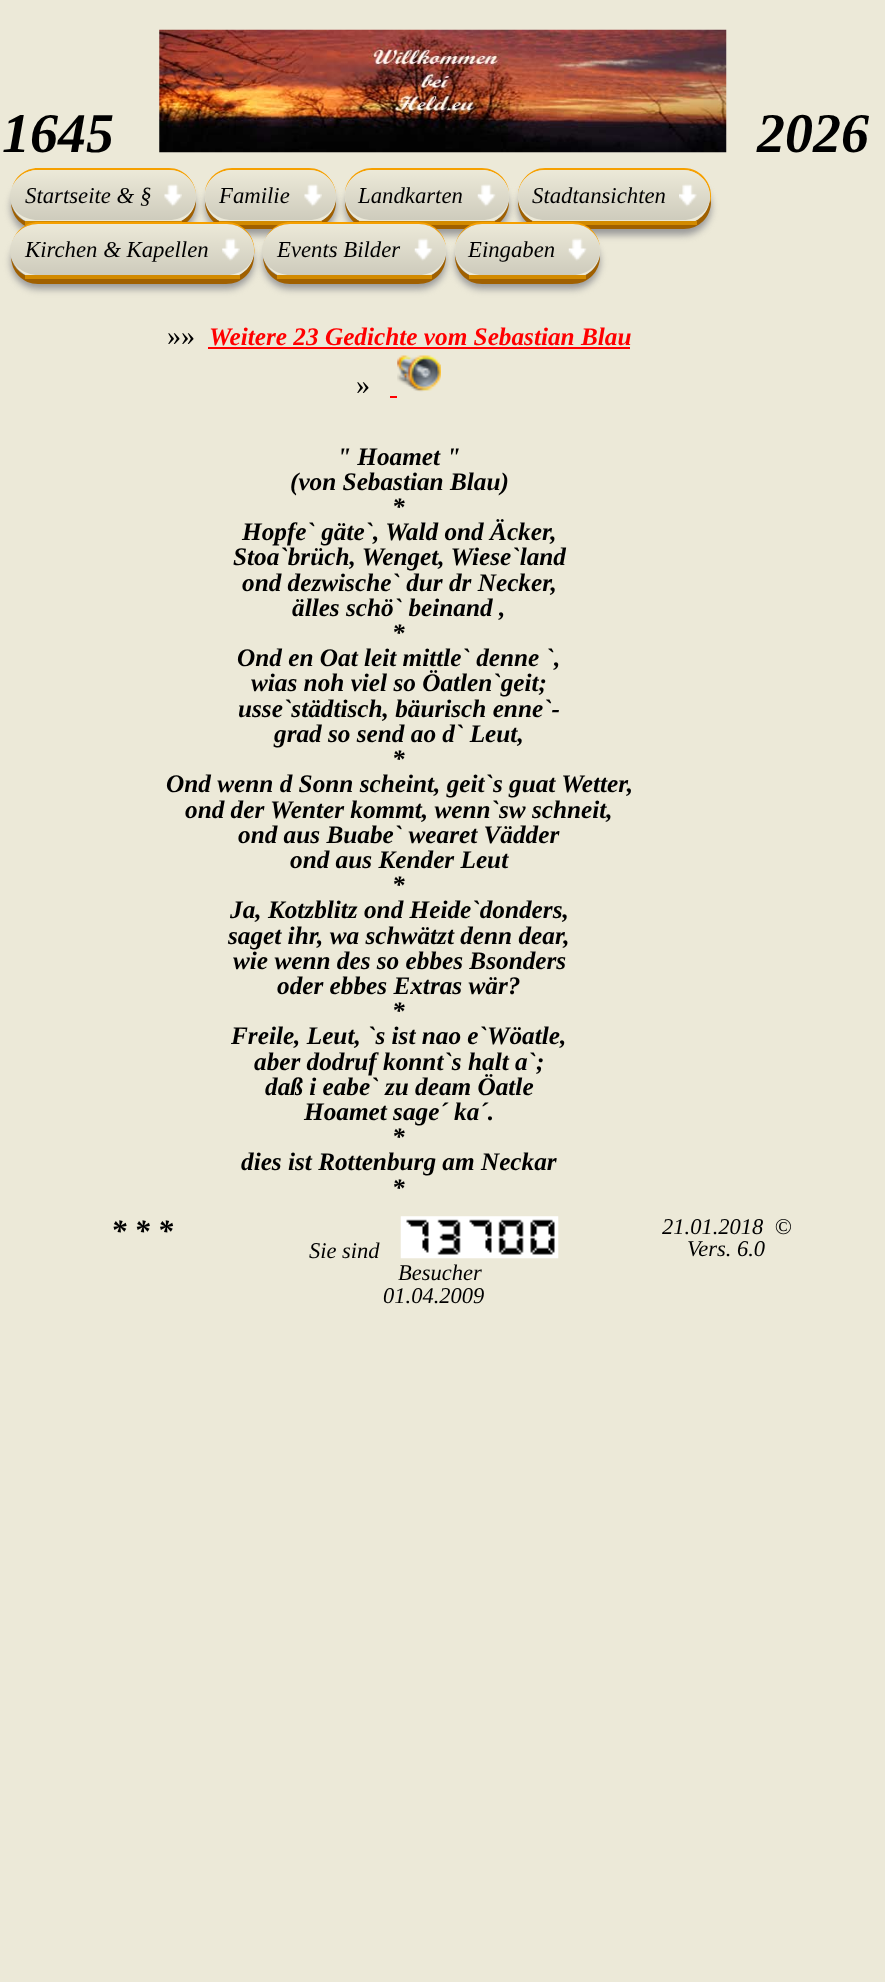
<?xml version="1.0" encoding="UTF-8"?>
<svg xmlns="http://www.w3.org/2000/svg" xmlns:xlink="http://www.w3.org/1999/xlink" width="885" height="1982">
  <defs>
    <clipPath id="clip1"><path d="M 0 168 h 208 v 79 h -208 z m 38 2 h 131 c 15 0 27 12 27 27 c 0 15 -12 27 -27 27 h -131 c -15 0 -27 -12 -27 -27 c 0 -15 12 -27 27 -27 z" clip-rule="evenodd" /></clipPath>
    <linearGradient id="g1" gradientUnits="userSpaceOnUse" x1="103" y1="170" x2="103" y2="221"><stop offset="0" stop-color="#000000" stop-opacity="0" /><stop offset="1" stop-color="#000000" stop-opacity="0.13" /></linearGradient>
    <clipPath id="clip2"><path d="M 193 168 h 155 v 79 h -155 z m 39 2 h 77 c 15 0 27 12 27 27 c 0 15 -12 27 -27 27 h -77 c -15 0 -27 -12 -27 -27 c 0 -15 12 -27 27 -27 z" clip-rule="evenodd" /></clipPath>
    <linearGradient id="g2" gradientUnits="userSpaceOnUse" x1="270" y1="170" x2="270" y2="221"><stop offset="0" stop-color="#000000" stop-opacity="0" /><stop offset="1" stop-color="#000000" stop-opacity="0.13" /></linearGradient>
    <clipPath id="clip3"><path d="M 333 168 h 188 v 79 h -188 z m 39 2 h 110 c 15 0 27 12 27 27 c 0 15 -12 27 -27 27 h -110 c -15 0 -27 -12 -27 -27 c 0 -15 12 -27 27 -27 z" clip-rule="evenodd" /></clipPath>
    <linearGradient id="g3" gradientUnits="userSpaceOnUse" x1="427" y1="170" x2="427" y2="221"><stop offset="0" stop-color="#000000" stop-opacity="0" /><stop offset="1" stop-color="#000000" stop-opacity="0.13" /></linearGradient>
    <clipPath id="clip4"><path d="M 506 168 h 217 v 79 h -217 z m 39 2 h 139 c 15 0 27 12 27 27 c 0 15 -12 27 -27 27 h -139 c -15 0 -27 -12 -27 -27 c 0 -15 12 -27 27 -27 z" clip-rule="evenodd" /></clipPath>
    <linearGradient id="g4" gradientUnits="userSpaceOnUse" x1="614" y1="170" x2="614" y2="221"><stop offset="0" stop-color="#000000" stop-opacity="0" /><stop offset="1" stop-color="#000000" stop-opacity="0.13" /></linearGradient>
    <clipPath id="clip5"><path d="M 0 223 h 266 v 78 h -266 z m 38 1 h 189 c 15 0 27 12 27 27 c 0 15 -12 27 -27 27 h -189 c -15 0 -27 -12 -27 -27 c 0 -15 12 -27 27 -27 z" clip-rule="evenodd" /></clipPath>
    <linearGradient id="g5" gradientUnits="userSpaceOnUse" x1="132" y1="224" x2="132" y2="275"><stop offset="0" stop-color="#000000" stop-opacity="0" /><stop offset="1" stop-color="#000000" stop-opacity="0.13" /></linearGradient>
    <clipPath id="clip6"><path d="M 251 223 h 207 v 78 h -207 z m 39 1 h 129 c 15 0 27 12 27 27 c 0 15 -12 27 -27 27 h -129 c -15 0 -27 -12 -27 -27 c 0 -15 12 -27 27 -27 z" clip-rule="evenodd" /></clipPath>
    <linearGradient id="g6" gradientUnits="userSpaceOnUse" x1="354" y1="224" x2="354" y2="275"><stop offset="0" stop-color="#000000" stop-opacity="0" /><stop offset="1" stop-color="#000000" stop-opacity="0.13" /></linearGradient>
    <clipPath id="clip7"><path d="M 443 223 h 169 v 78 h -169 z m 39 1 h 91 c 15 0 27 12 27 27 c 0 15 -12 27 -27 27 h -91 c -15 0 -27 -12 -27 -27 c 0 -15 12 -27 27 -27 z" clip-rule="evenodd" /></clipPath>
    <linearGradient id="g7" gradientUnits="userSpaceOnUse" x1="528" y1="224" x2="528" y2="275"><stop offset="0" stop-color="#000000" stop-opacity="0" /><stop offset="1" stop-color="#000000" stop-opacity="0.13" /></linearGradient>
  </defs>
  <rect width="100%" height="100%" fill="#ece9d8" />
  <image x="159" y="29" width="568" height="124" xlink:href="image1.png" />
  <g clip-path="url(#clip1)">
    <rect x="11" y="180" width="185" height="55" rx="27.5" fill="#999999" filter="blur(3.5px)" />
  </g>
  <path d="M 11 202 c 0 15 12 27 27 27 h 131 c 15 0 27 -12 27 -27 v -3 c -1 14 -13 25 -27 25 h -131 c -14 0 -25 -9 -27 -22 z" fill="#a06000" />
  <path d="M 38 168 c -13 0 -24 9 -26 21 c 3 -11 13 -19 26 -19 h 131 c 15 0 26 11 27 26 c 0 -15 -12 -28 -27 -28 z" fill="#f6a000" />
  <path d="M 38 170 h 131 c 15 0 27 12 27 27 c 0 13 -12 23 -27 23 h -131 c -15 0 -28 -10 -28 -23 c 0 -15 13 -27 28 -27 z" fill="#ece9d8" />
  <path d="M 38 170 h 131 c 15 0 27 12 27 27 c 0 13 -12 23 -27 23 h -131 c -15 0 -28 -10 -28 -23 c 0 -15 13 -27 28 -27 z" fill="url(#g1)" />
  <rect x="25" y="221" width="157" height="4" fill="#d28a00" />
  <image x="164" y="184" width="18" height="23" xlink:href="image2.png" />
  <g clip-path="url(#clip2)">
    <rect x="205" y="180" width="131" height="55" rx="27.5" fill="#999999" filter="blur(3.5px)" />
  </g>
  <path d="M 205 201 v 1 c 0 15 12 27 27 27 h 77 c 15 0 27 -12 27 -27 v -3 c -1 14 -13 25 -27 25 h -77 c -14 0 -25 -10 -27 -23 z" fill="#a06000" />
  <path d="M 232 168 c -14 0 -26 11 -27 24 c 2 -12 13 -22 27 -22 h 77 c 15 0 26 11 27 26 c 0 -15 -12 -28 -27 -28 z" fill="#f6a000" />
  <path d="M 232 170 h 77 c 15 0 27 12 27 27 c 0 13 -12 23 -27 23 h -77 c -15 0 -27 -10 -27 -23 c 0 -15 12 -27 27 -27 z" fill="#ece9d8" />
  <path d="M 232 170 h 77 c 15 0 27 12 27 27 c 0 13 -12 23 -27 23 h -77 c -15 0 -27 -10 -27 -23 c 0 -15 12 -27 27 -27 z" fill="url(#g2)" />
  <rect x="219" y="221" width="103" height="4" fill="#d28a00" />
  <image x="304" y="184" width="18" height="23" xlink:href="image3.png" />
  <g clip-path="url(#clip3)">
    <rect x="345" y="180" width="164" height="55" rx="27.5" fill="#999999" filter="blur(3.5px)" />
  </g>
  <path d="M 345 201 v 1 c 0 15 12 27 27 27 h 110 c 15 0 27 -12 27 -27 v -1 c -2 13 -13 23 -27 23 h -110 c -14 0 -25 -10 -27 -23 z" fill="#a06000" />
  <path d="M 372 168 c -14 0 -26 11 -27 24 c 2 -12 13 -22 27 -22 h 110 c 14 0 25 10 27 22 c -1 -13 -13 -24 -27 -24 z" fill="#f6a000" />
  <path d="M 372 170 h 110 c 15 0 27 12 27 27 c 0 13 -12 23 -27 23 h -110 c -15 0 -27 -10 -27 -23 c 0 -15 12 -27 27 -27 z" fill="#ece9d8" />
  <path d="M 372 170 h 110 c 15 0 27 12 27 27 c 0 13 -12 23 -27 23 h -110 c -15 0 -27 -10 -27 -23 c 0 -15 12 -27 27 -27 z" fill="url(#g3)" />
  <rect x="359" y="221" width="136" height="4" fill="#d28a00" />
  <image x="477" y="184" width="19" height="23" xlink:href="image4.png" />
  <g clip-path="url(#clip4)">
    <rect x="518" y="180" width="193" height="55" rx="27.5" fill="#999999" filter="blur(3.5px)" />
  </g>
  <path d="M 518 199 v 3 c 0 15 12 27 27 27 h 139 c 15 0 27 -12 27 -27 l -1 -5 c 0 15 -12 27 -27 27 h -138 c -14 0 -26 -11 -27 -25 z" fill="#a06000" />
  <path d="M 545 168 c -15 0 -27 13 -27 28 c 1 -15 12 -26 27 -26 h 138 c 15 0 27 12 27 27 v 6 c 5 -17 -8 -35 -26 -35 z" fill="#f6a000" />
  <path d="M 545 170 h 138 c 15 0 27 12 27 27 c 0 13 -12 23 -27 23 h -138 c -15 0 -27 -10 -27 -23 c 0 -15 12 -27 27 -27 z" fill="#ece9d8" />
  <path d="M 545 170 h 138 c 15 0 27 12 27 27 c 0 13 -12 23 -27 23 h -138 c -15 0 -27 -10 -27 -23 c 0 -15 12 -27 27 -27 z" fill="url(#g4)" />
  <rect x="532" y="221" width="165" height="4" fill="#d28a00" />
  <image x="679" y="184" width="18" height="23" xlink:href="image5.png" />
  <g clip-path="url(#clip5)">
    <rect x="11" y="235" width="243" height="54" rx="27" fill="#999999" filter="blur(3.5px)" />
  </g>
  <path d="M 11 256 c 0 16 12 28 27 28 h 188 c 16 0 28 -12 28 -28 v -3 c -1 14 -13 25 -27 25 h -189 c -14 0 -25 -9 -27 -22 z" fill="#a06000" />
  <path d="M 38 222 c -12 0 -23 9 -26 21 c 3 -11 14 -19 26 -19 h 189 c 15 0 27 12 27 27 v 4 c 3 -17 -10 -33 -28 -33 z" fill="#f6a000" />
  <path d="M 38 224 h 189 c 15 0 27 12 27 27 c 0 13 -12 24 -27 24 h -189 c -15 0 -28 -11 -28 -24 c 0 -15 13 -27 28 -27 z" fill="#ece9d8" />
  <path d="M 38 224 h 189 c 15 0 27 12 27 27 c 0 13 -12 24 -27 24 h -189 c -15 0 -28 -11 -28 -24 c 0 -15 13 -27 28 -27 z" fill="url(#g5)" />
  <rect x="25" y="275" width="215" height="4" fill="#d28a00" />
  <image x="222" y="238" width="18" height="23" xlink:href="image6.png" />
  <g clip-path="url(#clip6)">
    <rect x="263" y="235" width="183" height="54" rx="27" fill="#999999" filter="blur(3.5px)" />
  </g>
  <path d="M 263 256 c 0 16 12 28 27 28 h 128 c 16 0 28 -12 28 -28 v -1 c -2 13 -13 23 -27 23 h -129 c -14 0 -25 -9 -27 -22 z" fill="#a06000" />
  <path d="M 290 222 c -12 0 -23 9 -26 21 c 3 -11 14 -19 26 -19 h 129 c 13 0 24 10 27 22 c -2 -13 -13 -24 -28 -24 z" fill="#f6a000" />
  <path d="M 290 224 h 129 c 15 0 27 12 27 27 c 0 13 -12 24 -27 24 h -129 c -15 0 -28 -11 -28 -24 c 0 -15 13 -27 28 -27 z" fill="#ece9d8" />
  <path d="M 290 224 h 129 c 15 0 27 12 27 27 c 0 13 -12 24 -27 24 h -129 c -15 0 -28 -11 -28 -24 c 0 -15 13 -27 28 -27 z" fill="url(#g6)" />
  <rect x="277" y="275" width="155" height="4" fill="#d28a00" />
  <image x="414" y="238" width="19" height="23" xlink:href="image7.png" />
  <g clip-path="url(#clip7)">
    <rect x="455" y="235" width="145" height="54" rx="27" fill="#999999" filter="blur(3.5px)" />
  </g>
  <path d="M 455 254 v 2 c 0 16 12 28 27 28 h 90 c 16 0 28 -12 28 -28 v -1 c -2 13 -13 23 -27 23 h -91 c -14 0 -26 -10 -27 -24 z" fill="#a06000" />
  <path d="M 482 222 c -15 0 -27 13 -27 28 c 0 -14 12 -26 27 -26 h 91 c 13 0 24 10 27 22 c -2 -13 -13 -24 -28 -24 z" fill="#f6a000" />
  <path d="M 482 224 h 91 c 15 0 27 12 27 27 c 0 13 -12 24 -27 24 h -91 c -15 0 -27 -11 -27 -24 c 0 -15 12 -27 27 -27 z" fill="#ece9d8" />
  <path d="M 482 224 h 91 c 15 0 27 12 27 27 c 0 13 -12 24 -27 24 h -91 c -15 0 -27 -11 -27 -24 c 0 -15 12 -27 27 -27 z" fill="url(#g7)" />
  <rect x="469" y="275" width="117" height="4" fill="#d28a00" />
  <image x="568" y="238" width="19" height="23" xlink:href="image7.png" />
  <rect x="208" y="347" width="422" height="2" fill="#ff0000" />
  <image x="397" y="355" width="44" height="37" xlink:href="image8.png" />
  <rect x="390" y="396" width="7" height="2" fill="#ff0000" />
  <image x="400" y="1216" width="159" height="43" xlink:href="image9.png" />
  <text x="2" y="152" style="font-family: Liberation Serif; font-size: 56px; font-weight: bold; font-style: italic; fill: #000000">1645</text>
  <text x="757" y="152" style="font-family: Liberation Serif; font-size: 56px; font-weight: bold; font-style: italic; fill: #000000">2026</text>
  <text x="25" y="203" style="font-family: Liberation Serif; font-size: 22.75px; font-style: italic; fill: #000000">Startseite &amp; §</text>
  <text x="219" y="203" style="font-family: Liberation Serif; font-size: 22.75px; font-style: italic; fill: #000000">Familie</text>
  <text x="358" y="203" style="font-family: Liberation Serif; font-size: 22.75px; font-style: italic; fill: #000000">Landkarten</text>
  <text x="532" y="203" style="font-family: Liberation Serif; font-size: 22.75px; font-style: italic; fill: #000000">Stadtansichten</text>
  <text x="25" y="257" style="font-family: Liberation Serif; font-size: 22.75px; font-style: italic; fill: #000000">Kirchen &amp; Kapellen</text>
  <text x="277" y="257" style="font-family: Liberation Serif; font-size: 22.75px; font-style: italic; fill: #000000">Events Bilder</text>
  <text x="468" y="257" style="font-family: Liberation Serif; font-size: 22.75px; font-style: italic; fill: #000000">Eingaben</text>
  <text x="167" y="345" style="font-family: Liberation Serif; font-size: 28px; fill: #000000">»»</text>
  <text x="209" y="345" style="font-family: Liberation Serif; font-size: 25.25px; font-weight: bold; font-style: italic; fill: #ff0000">Weitere 23 Gedichte vom Sebastian Blau</text>
  <text x="356" y="394" style="font-family: Liberation Serif; font-size: 28px; fill: #000000">»</text>
  <text x="337" y="465" style="font-family: Liberation Serif; font-size: 25.25px; font-weight: bold; font-style: italic; fill: #000000">" Hoamet "</text>
  <text x="290" y="490" style="font-family: Liberation Serif; font-size: 25.25px; font-weight: bold; font-style: italic; fill: #000000">(von Sebastian Blau)</text>
  <text x="392" y="515" style="font-family: Liberation Serif; font-size: 25.25px; font-weight: bold; font-style: italic; fill: #000000">*</text>
  <text x="242" y="540" style="font-family: Liberation Serif; font-size: 25.25px; font-weight: bold; font-style: italic; fill: #000000">Hopfe` gäte`, Wald ond Äcker,</text>
  <text x="233" y="565" style="font-family: Liberation Serif; font-size: 25.25px; font-weight: bold; font-style: italic; fill: #000000">Stoa`brüch, Wenget, Wiese`land</text>
  <text x="242" y="591" style="font-family: Liberation Serif; font-size: 25.25px; font-weight: bold; font-style: italic; fill: #000000">ond dezwische` dur dr Necker,</text>
  <text x="292" y="616" style="font-family: Liberation Serif; font-size: 25.25px; font-weight: bold; font-style: italic; fill: #000000">älles schö` beinand ,</text>
  <text x="392" y="641" style="font-family: Liberation Serif; font-size: 25.25px; font-weight: bold; font-style: italic; fill: #000000">*</text>
  <text x="237" y="666" style="font-family: Liberation Serif; font-size: 25.25px; font-weight: bold; font-style: italic; fill: #000000">Ond en Oat leit mittle` denne `,</text>
  <text x="251" y="691" style="font-family: Liberation Serif; font-size: 25.25px; font-weight: bold; font-style: italic; fill: #000000">wias noh viel so Öatlen`geit;</text>
  <text x="238" y="717" style="font-family: Liberation Serif; font-size: 25.25px; font-weight: bold; font-style: italic; fill: #000000">usse`städtisch, bäurisch enne`-</text>
  <text x="274" y="742" style="font-family: Liberation Serif; font-size: 25.25px; font-weight: bold; font-style: italic; fill: #000000">grad so send ao d` Leut,</text>
  <text x="392" y="767" style="font-family: Liberation Serif; font-size: 25.25px; font-weight: bold; font-style: italic; fill: #000000">*</text>
  <text x="166" y="792" style="font-family: Liberation Serif; font-size: 25.25px; font-weight: bold; font-style: italic; fill: #000000">Ond wenn d Sonn scheint, geit`s guat Wetter,</text>
  <text x="185" y="818" style="font-family: Liberation Serif; font-size: 25.25px; font-weight: bold; font-style: italic; fill: #000000">ond der Wenter kommt, wenn`sw schneit,</text>
  <text x="238" y="843" style="font-family: Liberation Serif; font-size: 25.25px; font-weight: bold; font-style: italic; fill: #000000">ond aus Buabe` wearet Vädder</text>
  <text x="290" y="868" style="font-family: Liberation Serif; font-size: 25.25px; font-weight: bold; font-style: italic; fill: #000000">ond aus Kender Leut</text>
  <text x="392" y="893" style="font-family: Liberation Serif; font-size: 25.25px; font-weight: bold; font-style: italic; fill: #000000">*</text>
  <text x="230" y="918" style="font-family: Liberation Serif; font-size: 25.25px; font-weight: bold; font-style: italic; fill: #000000">Ja, Kotzblitz ond Heide`donders,</text>
  <text x="228" y="944" style="font-family: Liberation Serif; font-size: 25.25px; font-weight: bold; font-style: italic; fill: #000000">saget ihr, wa schwätzt denn dear,</text>
  <text x="233" y="969" style="font-family: Liberation Serif; font-size: 25.25px; font-weight: bold; font-style: italic; fill: #000000">wie wenn des so ebbes Bsonders</text>
  <text x="277" y="994" style="font-family: Liberation Serif; font-size: 25.25px; font-weight: bold; font-style: italic; fill: #000000">oder ebbes Extras wär?</text>
  <text x="392" y="1019" style="font-family: Liberation Serif; font-size: 25.25px; font-weight: bold; font-style: italic; fill: #000000">*</text>
  <text x="231" y="1044" style="font-family: Liberation Serif; font-size: 25.25px; font-weight: bold; font-style: italic; fill: #000000">Freile, Leut, `s ist nao e`Wöatle,</text>
  <text x="254" y="1070" style="font-family: Liberation Serif; font-size: 25.25px; font-weight: bold; font-style: italic; fill: #000000">aber dodruf konnt`s halt a`;</text>
  <text x="265" y="1095" style="font-family: Liberation Serif; font-size: 25.25px; font-weight: bold; font-style: italic; fill: #000000">daß i eabe` zu deam Öatle</text>
  <text x="304" y="1120" style="font-family: Liberation Serif; font-size: 25.25px; font-weight: bold; font-style: italic; fill: #000000">Hoamet sage´ ka´.</text>
  <text x="392" y="1145" style="font-family: Liberation Serif; font-size: 25.25px; font-weight: bold; font-style: italic; fill: #000000">*</text>
  <text x="241" y="1170" style="font-family: Liberation Serif; font-size: 25.25px; font-weight: bold; font-style: italic; fill: #000000">dies ist Rottenburg am Neckar</text>
  <text x="392" y="1196" style="font-family: Liberation Serif; font-size: 25.25px; font-weight: bold; font-style: italic; fill: #000000">*</text>
  <text x="111" y="1241" style="font-family: Liberation Serif; font-size: 31px; font-weight: bold; font-style: italic; fill: #000000">* * *</text>
  <text x="662" y="1234" style="font-family: Liberation Serif; font-size: 22.5px; font-style: italic; fill: #000000" xml:space="preserve">21.01.2018  ©</text>
  <text x="687" y="1256" style="font-family: Liberation Serif; font-size: 22.5px; font-style: italic; fill: #000000">Vers. 6.0</text>
  <text x="309" y="1258" style="font-family: Liberation Serif; font-size: 22.5px; font-style: italic; fill: #000000">Sie sind</text>
  <text x="398" y="1280" style="font-family: Liberation Serif; font-size: 22.5px; font-style: italic; fill: #000000">Besucher</text>
  <text x="383" y="1303" style="font-family: Liberation Serif; font-size: 22.5px; font-style: italic; fill: #000000">01.04.2009</text>
</svg>
